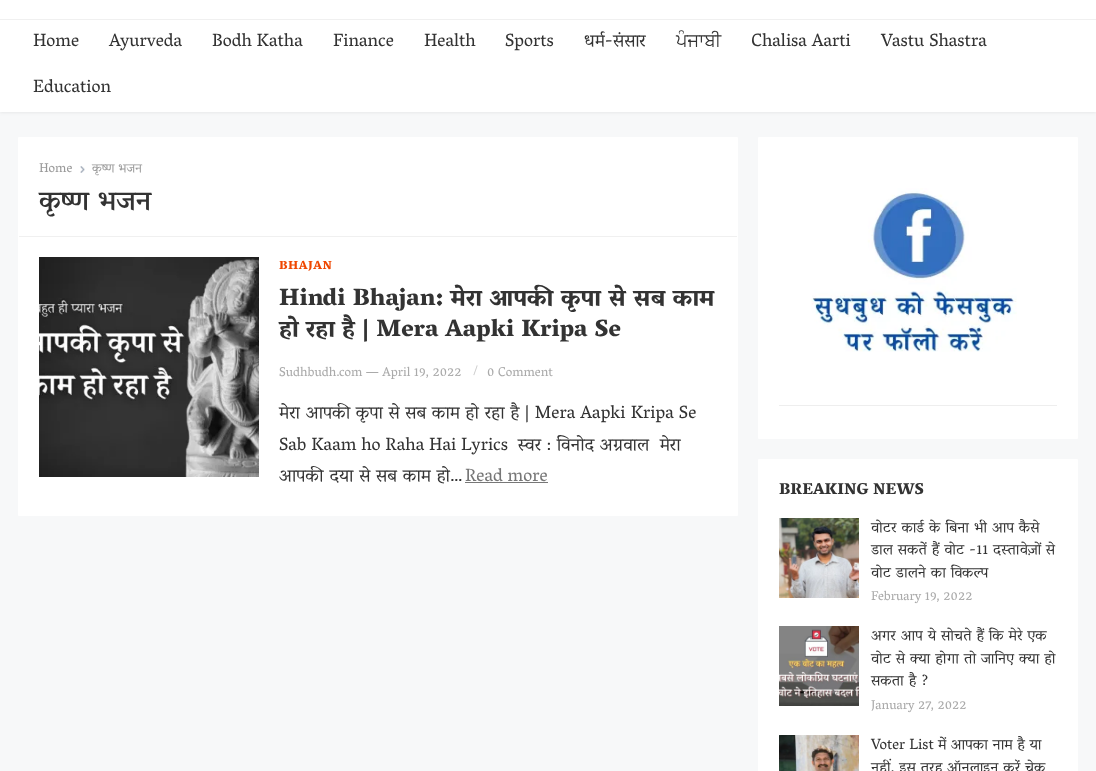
<?xml version="1.0" encoding="UTF-8"?>
<svg xmlns="http://www.w3.org/2000/svg" xmlns:xlink="http://www.w3.org/1999/xlink" width="1096" height="771">
  <rect width="100%" height="100%" fill="#f7f8f9" />
  <rect y="-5" width="1096" height="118" fill="#636363" fill-opacity="0.1" filter="blur(1.5px)" />
  <rect width="1096" height="112" fill="#ffffff" />
  <rect y="19" width="1096" height="1" fill="#f0f0f0" />
  <rect x="18" y="137" width="720" height="379" rx="1" fill="#ffffff" />
  <rect x="19" y="236" width="718" height="1" fill="#f0f0f0" />
  <image x="80" y="166" width="5" height="7" xlink:href="image1.png" />
  <image x="39" y="257" width="220" height="220" xlink:href="image2.png" />
  <rect x="465" y="482" width="83" height="1" fill="#777777" />
  <rect x="758" y="137" width="320" height="302" rx="1" fill="#ffffff" />
  <image x="811" y="188" width="206" height="164" xlink:href="image3.png" />
  <rect x="779" y="405" width="278" height="1" fill="#eeeeee" />
  <rect x="758" y="459" width="320" height="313" rx="1" fill="#ffffff" />
  <image x="779" y="518" width="80" height="80" xlink:href="image4.png" />
  <image x="779" y="626" width="80" height="80" xlink:href="image5.png" />
  <image x="779" y="735" width="80" height="36" xlink:href="image6.png" />
  <text x="33" y="46" style="font-family: Vesper Libre; font-size: 18px; fill: #333333">Home</text>
  <text x="109" y="46" style="font-family: Vesper Libre; font-size: 18px; fill: #333333">Ayurveda</text>
  <text x="212" y="46" style="font-family: Vesper Libre; font-size: 18px; fill: #333333">Bodh Katha</text>
  <text x="333" y="46" style="font-family: Vesper Libre; font-size: 18px; fill: #333333">Finance</text>
  <text x="424" y="46" style="font-family: Vesper Libre; font-size: 18px; fill: #333333">Health</text>
  <text x="505" y="46" style="font-family: Vesper Libre; font-size: 18px; fill: #333333">Sports</text>
  <text x="584" y="46" style="font-family: Vesper Libre; font-size: 18px; fill: #333333">धर्म-संसार</text>
  <text x="676" y="46" style="font-family: FreeSans; font-size: 18px; fill: #333333">ਪੰਜਾਬੀ</text>
  <text x="751" y="46" style="font-family: Vesper Libre; font-size: 18px; fill: #333333">Chalisa Aarti</text>
  <text x="881" y="46" style="font-family: Vesper Libre; font-size: 18px; fill: #333333">Vastu Shastra</text>
  <text x="33" y="92" style="font-family: Vesper Libre; font-size: 18px; fill: #333333">Education</text>
  <text x="39" y="172" style="font-family: Vesper Libre; font-size: 13px; fill: #999999">Home</text>
  <text x="92" y="172" style="font-family: Vesper Libre; font-size: 13px; fill: #999999">कृष्ण भजन</text>
  <text x="39" y="209" style="font-family: Vesper Libre; font-size: 28px; font-weight: 500; fill: #333333">कृष्ण भजन</text>
  <text x="279" y="269" style="font-family: Vesper Libre; font-size: 12px; font-weight: 900; letter-spacing: 0.5px; fill: #ef4700">BHAJAN</text>
  <text x="279" y="305" word-spacing="0.25" style="font-family: Vesper Libre; font-size: 24px; font-weight: 900; fill: #333333">Hindi Bhajan: मेरा आपकी कृपा से सब काम</text>
  <text x="279" y="336" style="font-family: Vesper Libre; font-size: 24px; font-weight: 900; fill: #333333">हो रहा है | Mera Aapki Kripa Se</text>
  <text x="279" y="376" style="font-family: Vesper Libre; font-size: 13px; fill: #aaaaaa">Sudhbudh.com — April 19, 2022</text>
  <text x="473" y="374" style="font-family: Vesper Libre; font-size: 12px; fill: #cccccc">/</text>
  <text x="487" y="376" style="font-family: Vesper Libre; font-size: 13px; fill: #aaaaaa">0 Comment</text>
  <text x="279" y="418" word-spacing="0.3" style="font-family: Vesper Libre; font-size: 18px; fill: #333333">मेरा आपकी कृपा से सब काम हो रहा है | Mera Aapki Kripa Se</text>
  <text x="279" y="450" style="font-family: Vesper Libre; font-size: 18px; fill: #333333" xml:space="preserve">Sab Kaam ho Raha Hai Lyrics  स्वर : विनोद अग्रवाल  मेरा</text>
  <text x="279" y="481" word-spacing="0.5" style="font-family: Vesper Libre; font-size: 18px; fill: #333333">आपकी दया से सब काम हो…</text>
  <text x="465" y="481" style="font-family: Vesper Libre; font-size: 18px; fill: #777777">Read more</text>
  <text x="779" y="494" style="font-family: Vesper Libre; font-size: 16px; font-weight: 900; fill: #333333">BREAKING NEWS</text>
  <text x="871" y="532" word-spacing="0.5" style="font-family: Vesper Libre; font-size: 15px; fill: #333333">वोटर कार्ड के बिना भी आप कैसे</text>
  <text x="871" y="554" word-spacing="0.5" style="font-family: Vesper Libre; font-size: 15px; fill: #333333">डाल सकतें हैं वोट -11 दस्तावेज़ों से</text>
  <text x="871" y="577" word-spacing="0.5" style="font-family: Vesper Libre; font-size: 15px; fill: #333333">वोट डालने का विकल्प</text>
  <text x="871" y="600" style="font-family: Vesper Libre; font-size: 13px; fill: #aaaaaa">February 19, 2022</text>
  <text x="871" y="640" word-spacing="0.5" style="font-family: Vesper Libre; font-size: 15px; fill: #333333">अगर आप ये सोचते हैं कि मेरे एक</text>
  <text x="871" y="663" word-spacing="0.5" style="font-family: Vesper Libre; font-size: 15px; fill: #333333">वोट से क्या होगा तो जानिए क्या हो</text>
  <text x="871" y="685" word-spacing="0.5" style="font-family: Vesper Libre; font-size: 15px; fill: #333333">सकता है ?</text>
  <text x="871" y="709" style="font-family: Vesper Libre; font-size: 13px; fill: #aaaaaa">January 27, 2022</text>
  <text x="871" y="749" word-spacing="0.25" style="font-family: Vesper Libre; font-size: 15px; fill: #333333">Voter List में आपका नाम है या</text>
  <text x="871" y="772" word-spacing="0.5" style="font-family: Vesper Libre; font-size: 15px; fill: #333333">नहीं, इस तरह ऑनलाइन करें चेक</text>
</svg>
